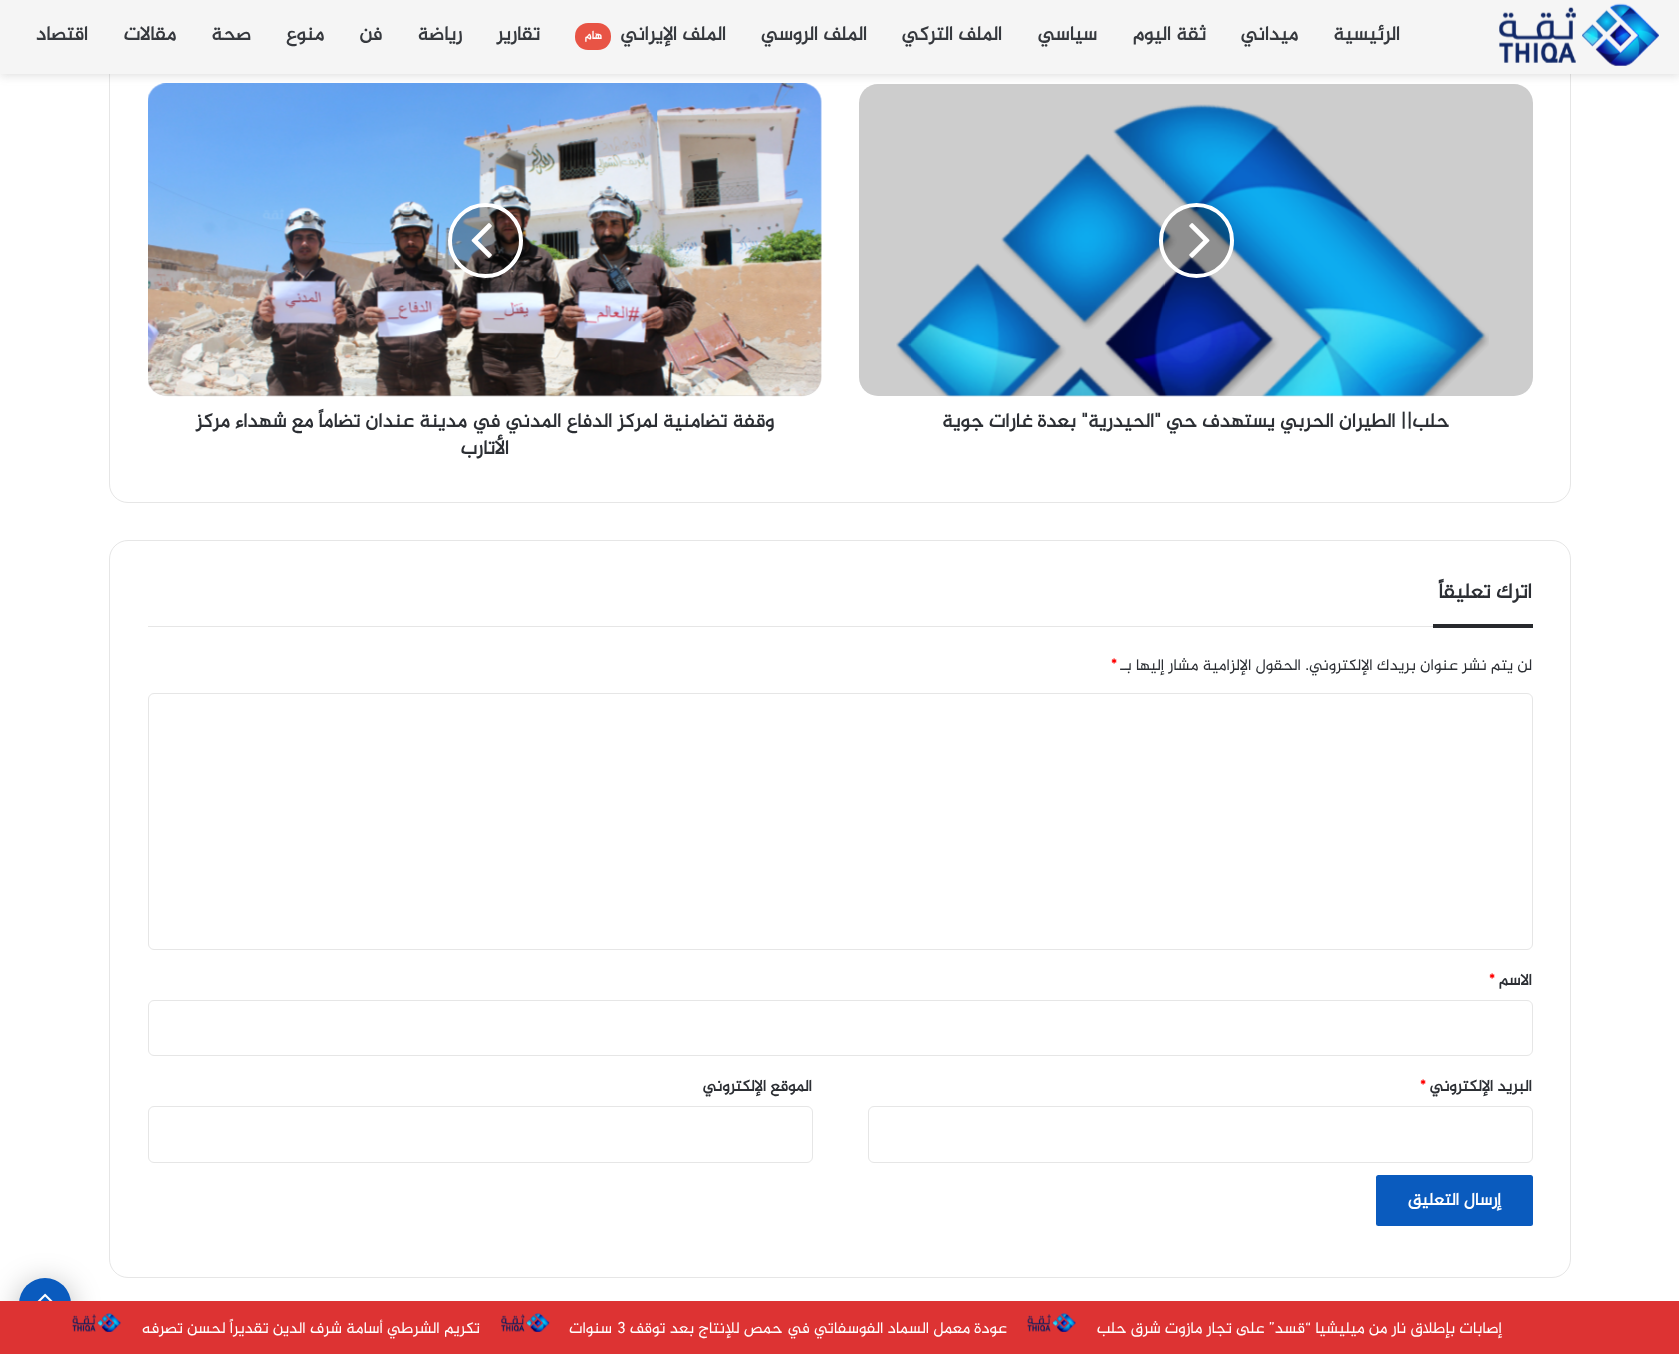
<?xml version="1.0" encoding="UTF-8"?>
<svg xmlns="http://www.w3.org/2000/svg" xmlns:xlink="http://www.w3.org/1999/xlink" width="1679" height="1354">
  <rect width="100%" height="100%" fill="#ffffff" />
  <rect x="109.5" y="45.5" width="1461" height="457" rx="18.5" fill="none" stroke="#e6e6e6" />
  <rect x="859" y="84" width="674" height="312" rx="19" fill="#cdcdcd" />
  <rect x="148" y="84" width="673" height="312" rx="19" fill="#cdcdcd" />
  <image x="148" y="83" width="674" height="314" xlink:href="image4.png" />
  <rect y="1" width="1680" height="75" fill="#636363" fill-opacity="0.2" filter="blur(5px)" />
  <rect width="1679" height="74" fill="#f5f5f5" />
  <image x="1499" y="3" width="160" height="63" xlink:href="image1.png" />
  <rect x="575" y="23" width="36" height="27" rx="13" fill="#e85445" />
  <image x="896" y="104" width="593" height="293" xlink:href="image2.png" />
  <circle cx="1196.5" cy="240.5" r="35.5" fill="#000000" fill-opacity="0.3" stroke="#ffffff" stroke-width="4" />
  <image x="1189" y="223" width="21" height="35" xlink:href="image3.png" />
  <circle cx="485.5" cy="240.5" r="35.5" fill="#000000" fill-opacity="0.3" stroke="#ffffff" stroke-width="4" />
  <image x="471" y="223" width="21" height="35" xlink:href="image5.png" />
  <rect x="109.5" y="540.5" width="1461" height="737" rx="18.5" fill="none" stroke="#e6e6e6" />
  <rect x="148" y="626" width="1285" height="1" fill="#e6e6e6" />
  <rect x="1433" y="624" width="100" height="4" fill="#27292d" />
  <rect x="148.5" y="693.5" width="1384" height="256" rx="5.5" fill="none" stroke="#e6e6e6" />
  <rect x="148.5" y="1000.5" width="1384" height="55" rx="5.5" fill="none" stroke="#e6e6e6" />
  <rect x="868.5" y="1106.5" width="664" height="56" rx="5.5" fill="none" stroke="#e6e6e6" />
  <rect x="148.5" y="1106.5" width="664" height="56" rx="5.5" fill="none" stroke="#e6e6e6" />
  <rect x="1376" y="1175" width="157" height="51" rx="2.5" fill="#0a5bbe" />
  <rect x="19" y="1284" width="52" height="52" rx="26" fill="#000000" fill-opacity="0.3" filter="blur(15.5px)" />
  <circle cx="45" cy="1304" r="26" fill="#0a5bbe" />
  <image x="37" y="1293" width="16" height="8" xlink:href="image6.png" />
  <rect y="1301" width="1679" height="53" fill="#dd3333" />
  <image x="1027" y="1313" width="49" height="19" xlink:href="image7.png" />
  <image x="501" y="1313" width="49" height="19" xlink:href="image8.png" />
  <image x="72" y="1313" width="49" height="19" xlink:href="image9.png" />
  <text x="1400" y="40" style="font-family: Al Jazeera; font-size: 20px; font-weight: bold; direction: rtl; fill: #36393e">الرئيسية</text>
  <text x="1298" y="40" style="font-family: Al Jazeera; font-size: 20px; font-weight: bold; direction: rtl; fill: #36393e">ميداني</text>
  <text x="1206" y="40" style="font-family: Al Jazeera; font-size: 20px; font-weight: bold; direction: rtl; fill: #36393e">ثقة اليوم</text>
  <text x="1097" y="40" style="font-family: Al Jazeera; font-size: 20px; font-weight: bold; direction: rtl; fill: #36393e">سياسي</text>
  <text x="1002" y="40" style="font-family: Al Jazeera; font-size: 20px; font-weight: bold; direction: rtl; fill: #36393e">الملف التركي</text>
  <text x="867" y="40" style="font-family: Al Jazeera; font-size: 20px; font-weight: bold; direction: rtl; fill: #36393e">الملف الروسي</text>
  <text x="726" y="40" style="font-family: Al Jazeera; font-size: 20px; font-weight: bold; direction: rtl; fill: #36393e">الملف الإيراني</text>
  <text x="602" y="39" style="font-family: Al Jazeera; font-size: 12px; font-weight: bold; direction: rtl; fill: #ffffff">هام</text>
  <text x="540" y="40" style="font-family: Al Jazeera; font-size: 20px; font-weight: bold; direction: rtl; fill: #36393e">تقارير</text>
  <text x="462" y="40" style="font-family: Al Jazeera; font-size: 20px; font-weight: bold; direction: rtl; fill: #36393e">رياضة</text>
  <text x="382" y="40" style="font-family: Al Jazeera; font-size: 20px; font-weight: bold; direction: rtl; fill: #36393e">فن</text>
  <text x="324" y="40" style="font-family: Al Jazeera; font-size: 20px; font-weight: bold; direction: rtl; fill: #36393e">منوع</text>
  <text x="251" y="40" style="font-family: Al Jazeera; font-size: 20px; font-weight: bold; direction: rtl; fill: #36393e">صحة</text>
  <text x="176" y="40" style="font-family: Al Jazeera; font-size: 20px; font-weight: bold; direction: rtl; fill: #36393e">مقالات</text>
  <text x="88" y="40" style="font-family: Al Jazeera; font-size: 20px; font-weight: bold; direction: rtl; fill: #36393e">اقتصاد</text>
  <text x="1449" y="427" style="font-family: Al Jazeera; font-size: 20px; font-weight: bold; direction: rtl; fill: #2c2f34">حلب|| الطيران الحربي يستهدف حي "الحيدرية" بعدة غارات جوية</text>
  <text x="774" y="427" style="font-family: Al Jazeera; font-size: 20px; font-weight: bold; direction: rtl; fill: #2c2f34">وقفة تضامنية لمركز الدفاع المدني في مدينة عندان تضاماً مع شهداء مركز</text>
  <text x="509" y="454" style="font-family: Al Jazeera; font-size: 20px; font-weight: bold; direction: rtl; fill: #2c2f34">الأتارب</text>
  <text x="1532" y="598" style="font-family: Al Jazeera; font-size: 21.25px; font-weight: bold; direction: rtl; fill: #2c2f34">اترك تعليقاً</text>
  <text x="1532" y="670" style="font-family: Al Jazeera; font-size: 16.25px; direction: rtl; fill: #2c2f34">لن يتم نشر عنوان بريدك الإلكتروني.</text>
  <text x="1301" y="670" style="font-family: Al Jazeera; font-size: 16.25px; direction: rtl; fill: #2c2f34">الحقول الإلزامية مشار إليها بـ</text>
  <text x="1111" y="670" style="font-family: Al Jazeera; font-size: 16.25px; font-weight: bold; fill: #ff0000">*</text>
  <text x="1532" y="985" style="font-family: Al Jazeera; font-size: 16.25px; font-weight: bold; direction: rtl; fill: #2c2f34">الاسم</text>
  <text x="1489" y="985" style="font-family: Al Jazeera; font-size: 16.25px; font-weight: bold; fill: #ff0000">*</text>
  <text x="1532" y="1091" style="font-family: Al Jazeera; font-size: 16.25px; font-weight: bold; direction: rtl; fill: #2c2f34">البريد الإلكتروني</text>
  <text x="1420" y="1091" style="font-family: Al Jazeera; font-size: 16.25px; font-weight: bold; fill: #ff0000">*</text>
  <text x="812" y="1091" style="font-family: Al Jazeera; font-size: 16.25px; font-weight: bold; direction: rtl; fill: #2c2f34">الموقع الإلكتروني</text>
  <text x="1501" y="1205" style="font-family: Al Jazeera; font-size: 17.5px; font-weight: bold; direction: rtl; fill: #ffffff">إرسال التعليق</text>
  <text x="1502" y="1333" style="font-family: Al Jazeera; font-size: 16.25px; direction: rtl; fill: #ffffff">إصابات بإطلاق نار من ميليشيا “قسد” على تجار مازوت شرق حلب</text>
  <text x="1007" y="1333" style="font-family: Al Jazeera; font-size: 16.25px; direction: rtl; fill: #ffffff">عودة معمل السماد الفوسفاتي في حمص للإنتاج بعد توقف</text>
  <text x="617" y="1333" style="font-family: Al Jazeera; font-size: 16.25px; fill: #ffffff">3</text>
  <text x="612" y="1333" style="font-family: Al Jazeera; font-size: 16.25px; direction: rtl; fill: #ffffff">سنوات</text>
  <text x="480" y="1333" style="font-family: Al Jazeera; font-size: 16.25px; direction: rtl; fill: #ffffff">تكريم الشرطي أسامة شرف الدين تقديراً لحسن تصرفه</text>
</svg>
